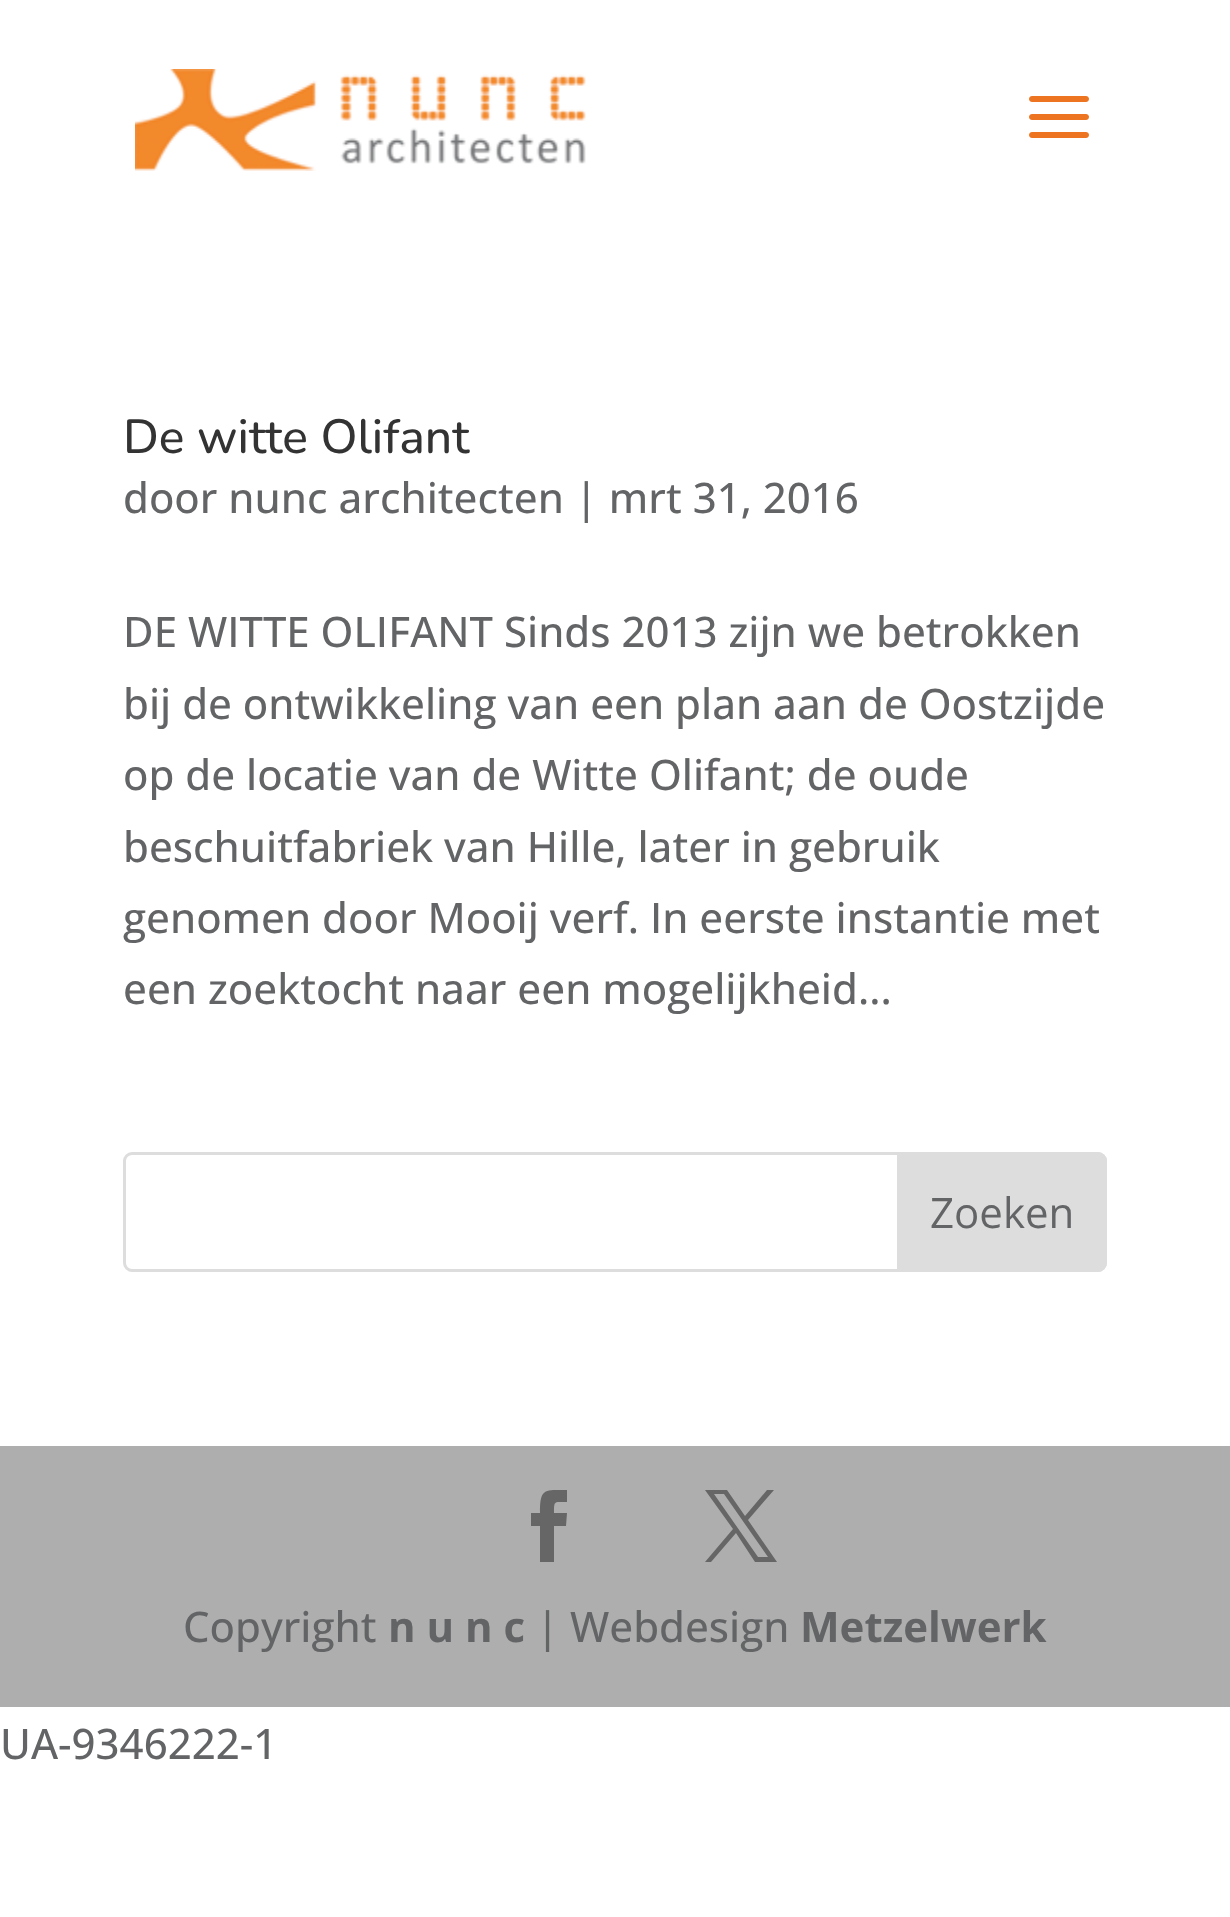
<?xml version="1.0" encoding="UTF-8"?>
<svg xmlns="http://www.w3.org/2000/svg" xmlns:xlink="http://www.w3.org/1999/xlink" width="1230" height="1917">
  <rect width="100%" height="100%" fill="#ffffff" />
  <image x="135" y="69" width="451" height="102" xlink:href="image1.png" />
  <image x="1029" y="96" width="60" height="42" xlink:href="image2.png" />
  <rect x="124.5" y="1153.5" width="981" height="117" rx="7.5" fill="none" stroke="#dddddd" stroke-width="3" />
  <path d="M 898.5 1153.5 h 199.5 c 4 0 7.5 3.5 7.5 7.5 v 102 c 0 4 -3.5 7.5 -7.5 7.5 h -199.5 z" fill="#dddddd" stroke="#dddddd" stroke-width="3" />
  <rect y="1446" width="1230" height="261" fill="#aeaeae" />
  <path d="M 540 1562 h 14 v -36 h 12 l 1 -13 h -13 c 0 -13 0 -11 13 -11 v -12 c -23 0 -27 -2 -27 23 h -9 v 13 h 9 z" fill="#666666" />
  <path d="M 705 1490 l 28 39 l -28 33 h 6 l 25 -29 l 19 29 h 22 l -29 -42 l 26 -30 h -7 l -22 26 l -18 -26 z m 9 4 h 10 l 44 63 h -10 z" fill="#666666" />
  <text x="123" y="453" style="font-family: Nunito; font-size: 48px; font-weight: 500; fill: #333333">De witte Olifant</text>
  <text x="123" y="513" style="font-family: Open Sans; font-size: 42px; font-weight: 500; fill: #636466">door nunc architecten | mrt 31, 2016</text>
  <text x="123" y="647" style="font-family: Open Sans; font-size: 42px; font-weight: 500; fill: #636466">DE WITTE OLIFANT Sinds 2013 zijn we betrokken</text>
  <text x="123" y="719" style="font-family: Open Sans; font-size: 42px; font-weight: 500; fill: #636466">bij de ontwikkeling van een plan aan de Oostzijde</text>
  <text x="123" y="790" style="font-family: Open Sans; font-size: 42px; font-weight: 500; fill: #636466">op de locatie van de Witte Olifant; de oude</text>
  <text x="123" y="862" style="font-family: Open Sans; font-size: 42px; font-weight: 500; fill: #636466">beschuitfabriek van Hille, later in gebruik</text>
  <text x="123" y="933" style="font-family: Open Sans; font-size: 42px; font-weight: 500; fill: #636466">genomen door Mooij verf. In eerste instantie met</text>
  <text x="123" y="1004" style="font-family: Open Sans; font-size: 42px; font-weight: 500; fill: #636466">een zoektocht naar een mogelijkheid...</text>
  <text x="930" y="1228" style="font-family: Open Sans; font-size: 42px; fill: #636466">Zoeken</text>
  <text x="183" y="1642" style="font-family: Open Sans; font-size: 42px; font-weight: 500; fill: #636466">Copyright</text>
  <text x="388" y="1642" style="font-family: Open Sans; font-size: 42px; font-weight: bold; fill: #636466">n u n c</text>
  <text x="536" y="1642" style="font-family: Open Sans; font-size: 42px; font-weight: 500; fill: #636466">| Webdesign</text>
  <text x="800" y="1642" style="font-family: Open Sans; font-size: 42px; font-weight: bold; fill: #636466">Metzelwerk</text>
  <text x="0" y="1759" style="font-family: Open Sans; font-size: 42px; font-weight: 500; fill: #636466">UA-9346222-1</text>
</svg>
